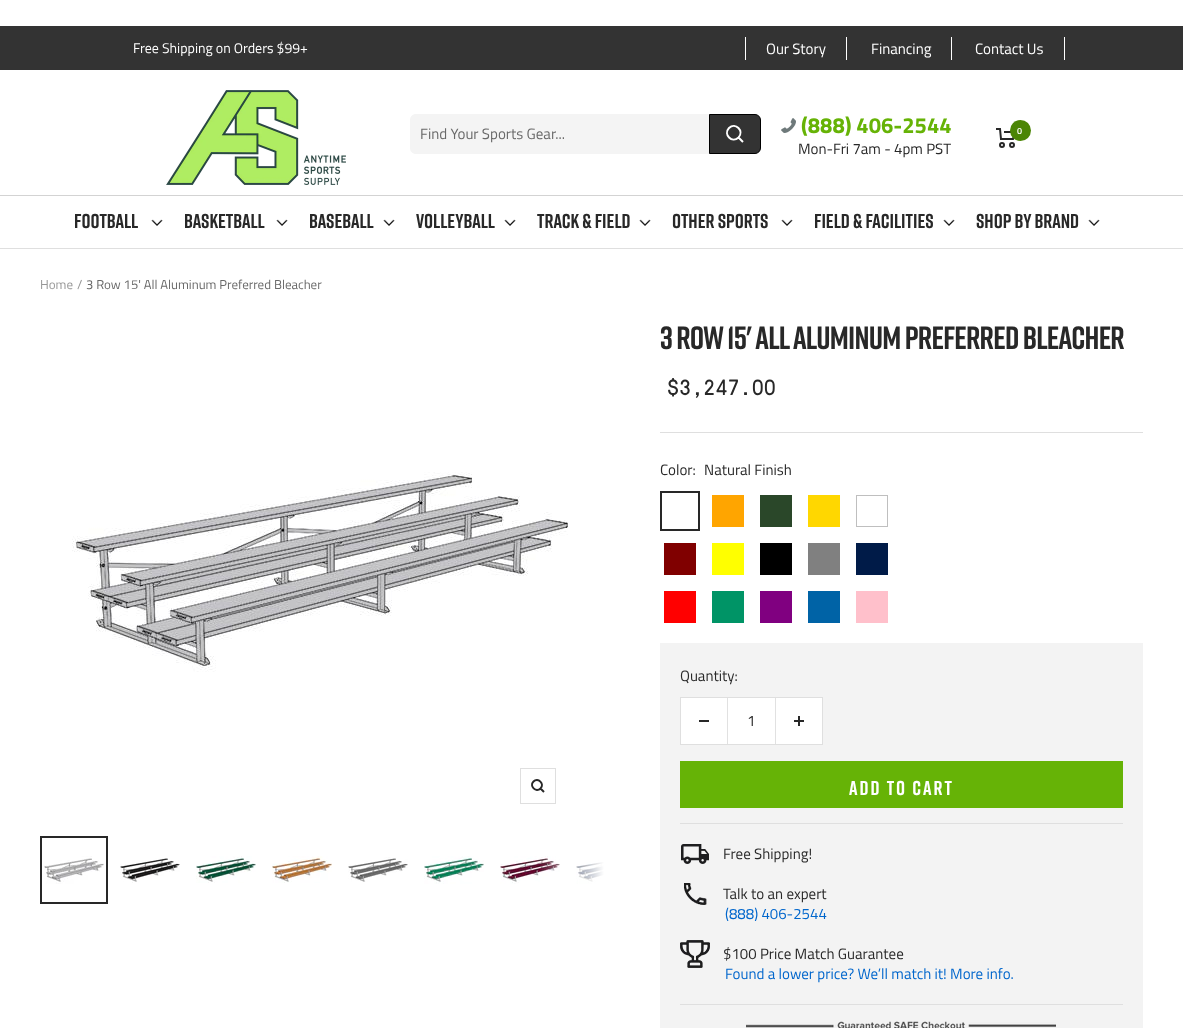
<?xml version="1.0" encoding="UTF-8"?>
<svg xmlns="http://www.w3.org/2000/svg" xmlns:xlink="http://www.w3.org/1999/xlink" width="1183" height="1028">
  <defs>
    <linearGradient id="g1" gradientUnits="userSpaceOnUse" x1="604" y1="970" x2="539" y2="970"><stop offset="0" stop-color="#ffffff" /><stop offset="1" stop-color="#ffffff" stop-opacity="0" /></linearGradient>
  </defs>
  <rect width="100%" height="100%" fill="#ffffff" />
  <rect y="26" width="1183" height="44" fill="#333333" />
  <rect x="846" y="37" width="1" height="23" fill="#ffffff" />
  <rect x="745" y="37" width="1" height="23" fill="#ffffff" />
  <rect x="951" y="37" width="1" height="23" fill="#ffffff" />
  <rect x="1064" y="37" width="1" height="23" fill="#ffffff" />
  <rect y="248" width="1183" height="1" fill="#dfdfdf" />
  <image x="166" y="90" width="180" height="95" xlink:href="image1.png" />
  <path d="M 416 114 h 314 v 40 h -314 c -3.5 0 -6 -2.5 -6 -6 v -28 c 0 -3.5 2.5 -6 6 -6 z" fill="#f4f4f4" />
  <path d="M 709.5 114.5 h 45.5 c 3 0 5.5 2.5 5.5 5.5 v 28 c 0 3 -2.5 5.5 -5.5 5.5 h -45.5 z" fill="#333333" stroke="#000000" />
  <path d="M 738.5 137.5 c 6 -6.5 -3 -15.5 -9.5 -9.5 c -6 6.5 3 15.5 9.5 9.5 z m 0 0 l 4.5 4.5" fill="none" stroke="#ffffff" stroke-width="2" />
  <image x="781" y="118" width="15" height="15" xlink:href="image2.png" />
  <path d="M 996 129 h 4 l 1 10 h 12 l 2 -7 h -11" fill="none" stroke="#282828" stroke-width="2" />
  <circle cx="1002" cy="145" r="2" fill="none" stroke="#282828" stroke-width="2" />
  <circle cx="1012" cy="145" r="2" fill="none" stroke="#282828" stroke-width="2" />
  <circle cx="1020.5" cy="130.5" r="10.5" fill="#4b8505" />
  <rect y="195" width="1183" height="1" fill="#d3d3d3" />
  <image x="151" y="219" width="12" height="7" xlink:href="image3.png" />
  <image x="276" y="219" width="12" height="7" xlink:href="image3.png" />
  <image x="383" y="219" width="12" height="7" xlink:href="image3.png" />
  <image x="504" y="219" width="12" height="7" xlink:href="image3.png" />
  <image x="639" y="219" width="12" height="7" xlink:href="image3.png" />
  <image x="781" y="219" width="12" height="7" xlink:href="image3.png" />
  <image x="943" y="219" width="12" height="7" xlink:href="image3.png" />
  <image x="1088" y="219" width="12" height="7" xlink:href="image3.png" />
  <image x="72" y="320" width="500" height="500" xlink:href="image4.png" />
  <rect x="520.5" y="768.5" width="35" height="35" fill="none" stroke="#dfdfdf" />
  <path d="M 540.5 788.5 c 4.5 -4.5 -2.5 -11.5 -7 -7 c -4.5 4.5 2.5 11.5 7 7 z m 0 0 l 3.5 3.5" fill="none" stroke="#282828" stroke-width="2" />
  <image x="44" y="856" width="60" height="28" xlink:href="image5.png" />
  <rect x="41" y="837" width="66" height="66" fill="none" stroke="#282828" stroke-width="2" />
  <image x="120" y="858" width="60" height="25" xlink:href="image6.png" />
  <image x="196" y="856" width="60" height="27" xlink:href="image7.png" />
  <image x="272" y="856" width="60" height="27" xlink:href="image8.png" />
  <image x="348" y="857" width="60" height="25" xlink:href="image9.png" />
  <image x="424" y="856" width="60" height="28" xlink:href="image10.png" />
  <image x="500" y="856" width="60" height="28" xlink:href="image11.png" />
  <image x="576" y="860" width="28" height="24" xlink:href="image12.png" />
  <rect x="540" y="858" width="64" height="26" fill="url(#g1)" />
  <rect x="660" y="432" width="483" height="1" fill="#dfdfdf" />
  <rect x="661" y="492" width="38" height="38" fill="none" stroke="#282828" stroke-width="2" />
  <rect x="712" y="495" width="32" height="32" fill="#ffa500" />
  <rect x="760" y="495" width="32" height="32" fill="#2a4729" />
  <rect x="808" y="495" width="32" height="32" fill="#ffd700" />
  <rect x="856.5" y="495.5" width="31" height="31" fill="none" stroke="#bfbfbf" />
  <rect x="664" y="543" width="32" height="32" fill="#800000" />
  <rect x="712" y="543" width="32" height="32" fill="#ffff00" />
  <rect x="760" y="543" width="32" height="32" fill="#000000" />
  <rect x="808" y="543" width="32" height="32" fill="#808080" />
  <rect x="856" y="543" width="32" height="32" fill="#001b48" />
  <rect x="664" y="591" width="32" height="32" fill="#ff0000" />
  <rect x="712" y="591" width="32" height="32" fill="#009466" />
  <rect x="760" y="591" width="32" height="32" fill="#800080" />
  <rect x="808" y="591" width="32" height="32" fill="#0063a6" />
  <rect x="856" y="591" width="32" height="32" fill="#ffc0cb" />
  <rect x="660" y="643" width="483" height="385" fill="#f3f3f3" />
  <rect x="680.5" y="697.5" width="142" height="47" fill="none" stroke="#dfdfdf" />
  <rect x="681" y="698" width="46" height="46" fill="#ffffff" />
  <rect x="699" y="720" width="10" height="2" fill="#282828" />
  <rect x="728" y="698" width="47" height="46" fill="#ffffff" />
  <rect x="775" y="698" width="1" height="46" fill="#e1e1e1" />
  <rect x="727" y="698" width="1" height="46" fill="#e1e1e1" />
  <rect x="776" y="698" width="46" height="46" fill="#ffffff" />
  <image x="794" y="716" width="10" height="10" xlink:href="image13.png" />
  <rect x="680" y="761" width="443" height="47" fill="#66b306" />
  <rect x="680" y="823" width="443" height="1" fill="#dfdfdf" />
  <image x="681" y="844" width="28" height="20" xlink:href="image14.png" />
  <image x="684" y="883" width="23" height="22" xlink:href="image15.png" />
  <image x="680" y="940" width="30" height="28" xlink:href="image16.png" />
  <rect x="680" y="1004" width="443" height="1" fill="#dfdfdf" />
  <image x="746" y="1021" width="310" height="7" xlink:href="image17.png" />
  <text x="133" y="53" style="font-family: Titillium Web; font-size: 14px; fill: #ffffff">Free Shipping on Orders $99+</text>
  <text x="766" y="54" style="font-family: Titillium Web; font-size: 15px; fill: #ffffff">Our Story</text>
  <text x="871" y="54" style="font-family: Titillium Web; font-size: 15px; fill: #ffffff">Financing</text>
  <text x="975" y="54" style="font-family: Titillium Web; font-size: 15px; fill: #ffffff">Contact Us</text>
  <text x="420" y="139" style="font-family: Titillium Web; font-size: 15px; fill: #696969">Find Your Sports Gear...</text>
  <text x="801" y="133" style="font-family: Titillium Web; font-size: 22px; font-weight: bold; fill: #66b306">(888) 406-2544</text>
  <text x="798" y="154" style="font-family: Titillium Web; font-size: 15px; fill: #282828">Mon-Fri 7am - 4pm PST</text>
  <text x="1017" y="134" style="font-family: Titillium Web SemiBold; font-size: 9px; font-weight: 600; fill: #ffffff">0</text>
  <text x="74" y="228" style="font-family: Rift; font-size: 20px; font-weight: bold; fill: #282828">Football</text>
  <text x="184" y="228" style="font-family: Rift; font-size: 20px; font-weight: bold; fill: #282828">Basketball</text>
  <text x="309" y="228" style="font-family: Rift; font-size: 20px; font-weight: bold; fill: #282828">Baseball</text>
  <text x="416" y="228" style="font-family: Rift; font-size: 20px; font-weight: bold; fill: #282828">Volleyball</text>
  <text x="537" y="228" style="font-family: Rift; font-size: 20px; font-weight: bold; fill: #282828">Track &amp; Field</text>
  <text x="672" y="228" style="font-family: Rift; font-size: 20px; font-weight: bold; fill: #282828">Other Sports</text>
  <text x="814" y="228" style="font-family: Rift; font-size: 20px; font-weight: bold; fill: #282828">Field &amp; Facilities</text>
  <text x="976" y="228" style="font-family: Rift; font-size: 20px; font-weight: bold; fill: #282828">Shop By Brand</text>
  <text x="40" y="289" style="font-family: Titillium Web; font-size: 13px; fill: #969696">Home</text>
  <text x="77" y="289" style="font-family: Titillium Web; font-size: 13px; fill: #969696">/</text>
  <text x="86" y="289" style="font-family: Titillium Web; font-size: 13px; fill: #696969">3 Row 15' All Aluminum Preferred Bleacher</text>
  <text x="660" y="349" style="font-family: Rift; font-size: 32px; font-weight: bold; letter-spacing: -0.8px; fill: #282828">3 ROW 15' ALL ALUMINUM PREFERRED BLEACHER</text>
  <text x="667" y="395" style="font-family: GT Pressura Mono; font-size: 22px; fill: #282828">$3,247.00</text>
  <text x="660" y="475" style="font-family: Titillium Web; font-size: 15px; fill: #282828">Color:</text>
  <text x="704" y="475" style="font-family: Titillium Web; font-size: 15px; fill: #282828">Natural Finish</text>
  <text x="680" y="681" style="font-family: Titillium Web; font-size: 15px; fill: #282828">Quantity:</text>
  <text x="747" y="726" style="font-family: Titillium Web; font-size: 15px; fill: #282828">1</text>
  <text x="849" y="795" style="font-family: Rift; font-size: 20px; font-weight: bold; letter-spacing: 2px; fill: #ffffff">ADD TO CART</text>
  <text x="723" y="859" style="font-family: Titillium Web; font-size: 15px; fill: #282828">Free Shipping!</text>
  <text x="723" y="899" style="font-family: Titillium Web; font-size: 15px; fill: #282828">Talk to an expert</text>
  <text x="725" y="919" style="font-family: Titillium Web; font-size: 15px; fill: #0066cc">(888) 406-2544</text>
  <text x="723" y="959" style="font-family: Titillium Web; font-size: 15px; fill: #282828">$100 Price Match Guarantee</text>
  <text x="725" y="979" style="font-family: Titillium Web; font-size: 15px; fill: #0066cc">Found a lower price? We’ll match it! More info.</text>
</svg>
